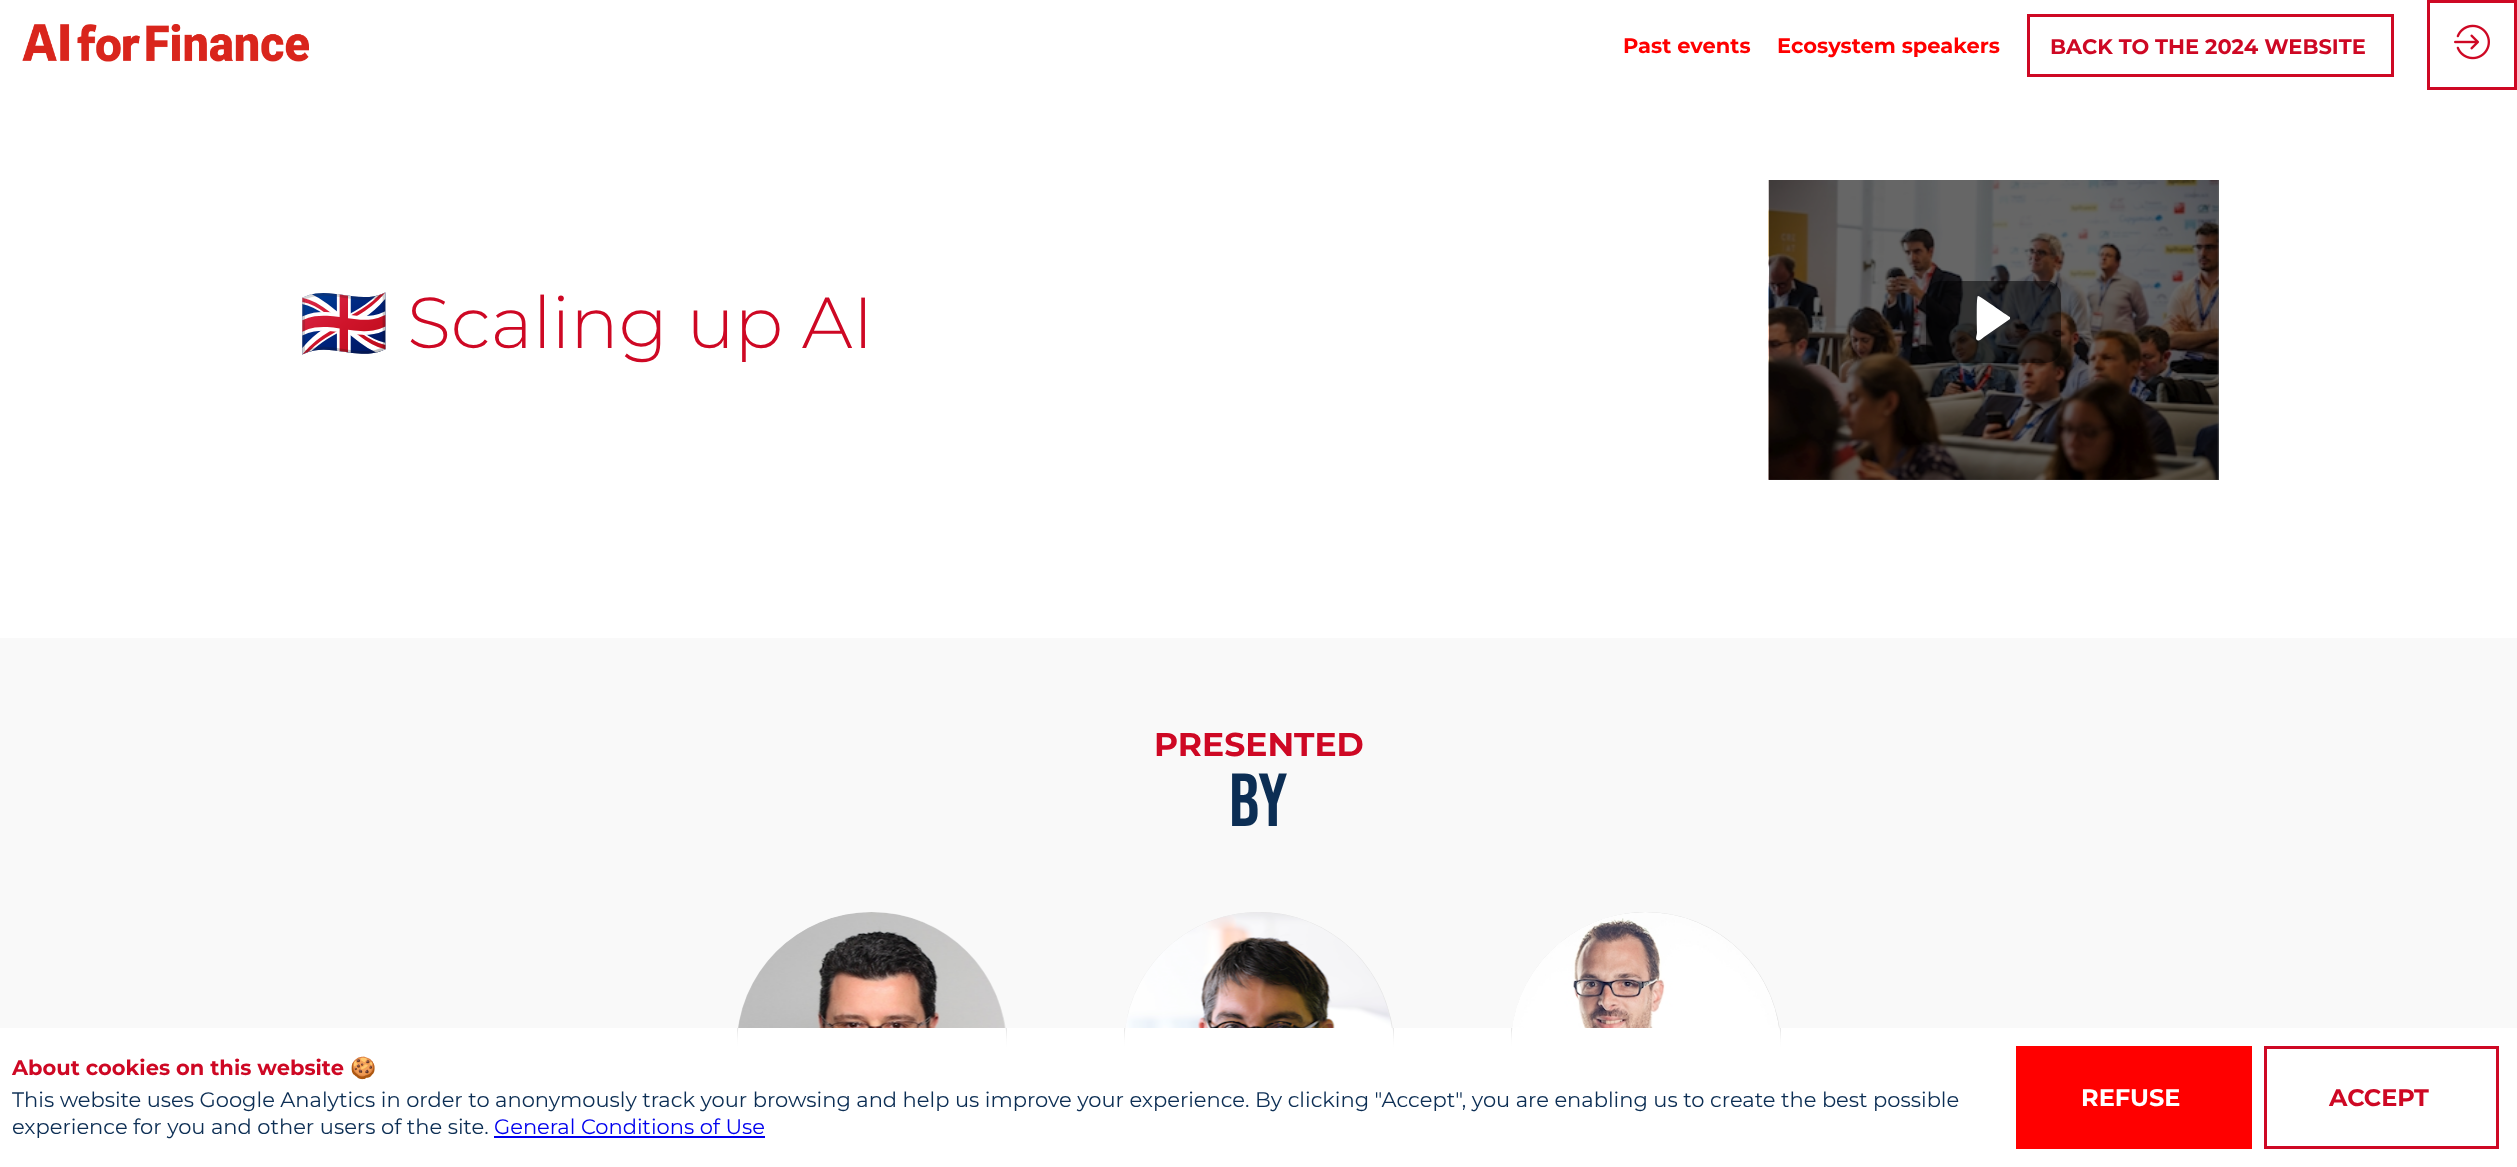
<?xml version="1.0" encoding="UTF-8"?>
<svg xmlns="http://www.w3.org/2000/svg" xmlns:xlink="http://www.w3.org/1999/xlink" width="2517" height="1167">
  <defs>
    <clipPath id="clip1"><rect x="299" y="284" width="1380" height="93" /></clipPath>
  </defs>
  <rect width="100%" height="100%" fill="#ffffff" />
  <rect x="1769" y="180" width="450" height="300" fill="#666666" />
  <image x="22" y="24" width="287" height="38" xlink:href="image1.png" />
  <rect x="2028.5" y="15.5" width="364" height="60" fill="none" stroke="#ce0824" stroke-width="3" />
  <rect x="2428.5" y="1.5" width="87" height="87" fill="none" stroke="#ce0824" stroke-width="3" />
  <image x="2454" y="24" width="36" height="36" xlink:href="image2.png" />
  <image x="1768" y="180" width="451" height="300" xlink:href="image3.png" />
  <rect x="1926" y="281" width="135" height="82" rx="15" fill="#000000" fill-opacity="0.5" />
  <path d="M 2010 317 c -4 -2 -31 -22 -32 -21 c -2 0 -1 31 -1 36 c 0 3 -2 7 0 8 c 3 2 5 -2 7 -3 l 26 -18 z" fill="#ffffff" />
  <rect y="638" width="2517" height="390" fill="#f9f9f9" />
  <path d="M 872 912 c 74.5 0 135 60.5 135 135 v -19 h -270 v 19 c 0 -74.5 60.5 -135 135 -135 z" fill="#b5b5b5" fill-opacity="0.3" />
  <image x="738" y="912" width="267" height="116" xlink:href="image4.png" />
  <path d="M 1259 912 c 74.5 0 135 60.5 135 135 v -19 h -270 v 19 c 0 -74.5 60.5 -135 135 -135 z" fill="#b5b5b5" fill-opacity="0.3" />
  <image x="1125" y="912" width="267" height="116" xlink:href="image5.png" />
  <path d="M 1646 912 c 74.5 0 135 60.5 135 135 v -19 h -270 v 19 c 0 -74.5 60.5 -135 135 -135 z" fill="#b5b5b5" fill-opacity="0.3" />
  <image x="1512" y="912" width="267" height="116" xlink:href="image6.png" />
  <rect x="494" y="1136" width="271" height="2" fill="#0000ee" />
  <rect x="2016" y="1046" width="236" height="103" fill="#ff0000" />
  <rect x="2265.5" y="1047.5" width="232" height="100" fill="none" stroke="#ce0824" stroke-width="3" />
  <text x="1623" y="53" style="font-family: Montserrat; font-size: 21px; font-weight: bold; fill: #ff0000">Past events</text>
  <text x="1777" y="53" style="font-family: Montserrat; font-size: 21px; font-weight: bold; fill: #ff0000">Ecosystem speakers</text>
  <text x="2050" y="54" style="font-family: Montserrat; font-size: 21px; font-weight: bold; fill: #ce0824">BACK TO THE 2024 WEBSITE</text>
  <g clip-path="url(#clip1)">
    <text x="299" y="348" style="font-family: Noto Color Emoji; font-size: 72px; fill: #ce0824">🇬🇧</text>
  </g>
  <text x="407" y="348" style="font-family: Montserrat; font-size: 72px; font-weight: 300; fill: #ce0824">Scaling up AI</text>
  <text x="1154" y="756" style="font-family: Montserrat; font-size: 33px; font-weight: bold; fill: #ce0824">PRESENTED</text>
  <text x="1229" y="826" style="font-family: Bebas Neue; font-size: 75px; fill: #0c2e54">BY</text>
  <text x="12" y="1075" style="font-family: Montserrat; font-size: 21px; font-weight: bold; fill: #ce0824">About cookies on this website</text>
  <text x="350" y="1075" style="font-family: Noto Color Emoji; font-size: 21px; font-weight: bold; fill: #ce0824">🍪</text>
  <text x="12" y="1107" style="font-family: Montserrat; font-size: 21px; fill: #0c2e54">This website uses Google Analytics in order to anonymously track your browsing and help us improve your experience. By clicking "Accept", you are enabling us to create the best possible</text>
  <text x="12" y="1134" style="font-family: Montserrat; font-size: 21px; fill: #0c2e54">experience for you and other users of the site.</text>
  <text x="494" y="1134" style="font-family: Montserrat; font-size: 21px; fill: #0000ee">General Conditions of Use</text>
  <text x="2081" y="1106" style="font-family: Montserrat; font-size: 24px; font-weight: bold; fill: #ffffff">REFUSE</text>
  <text x="2329" y="1106" style="font-family: Montserrat; font-size: 24px; font-weight: bold; fill: #ce0824">ACCEPT</text>
</svg>
